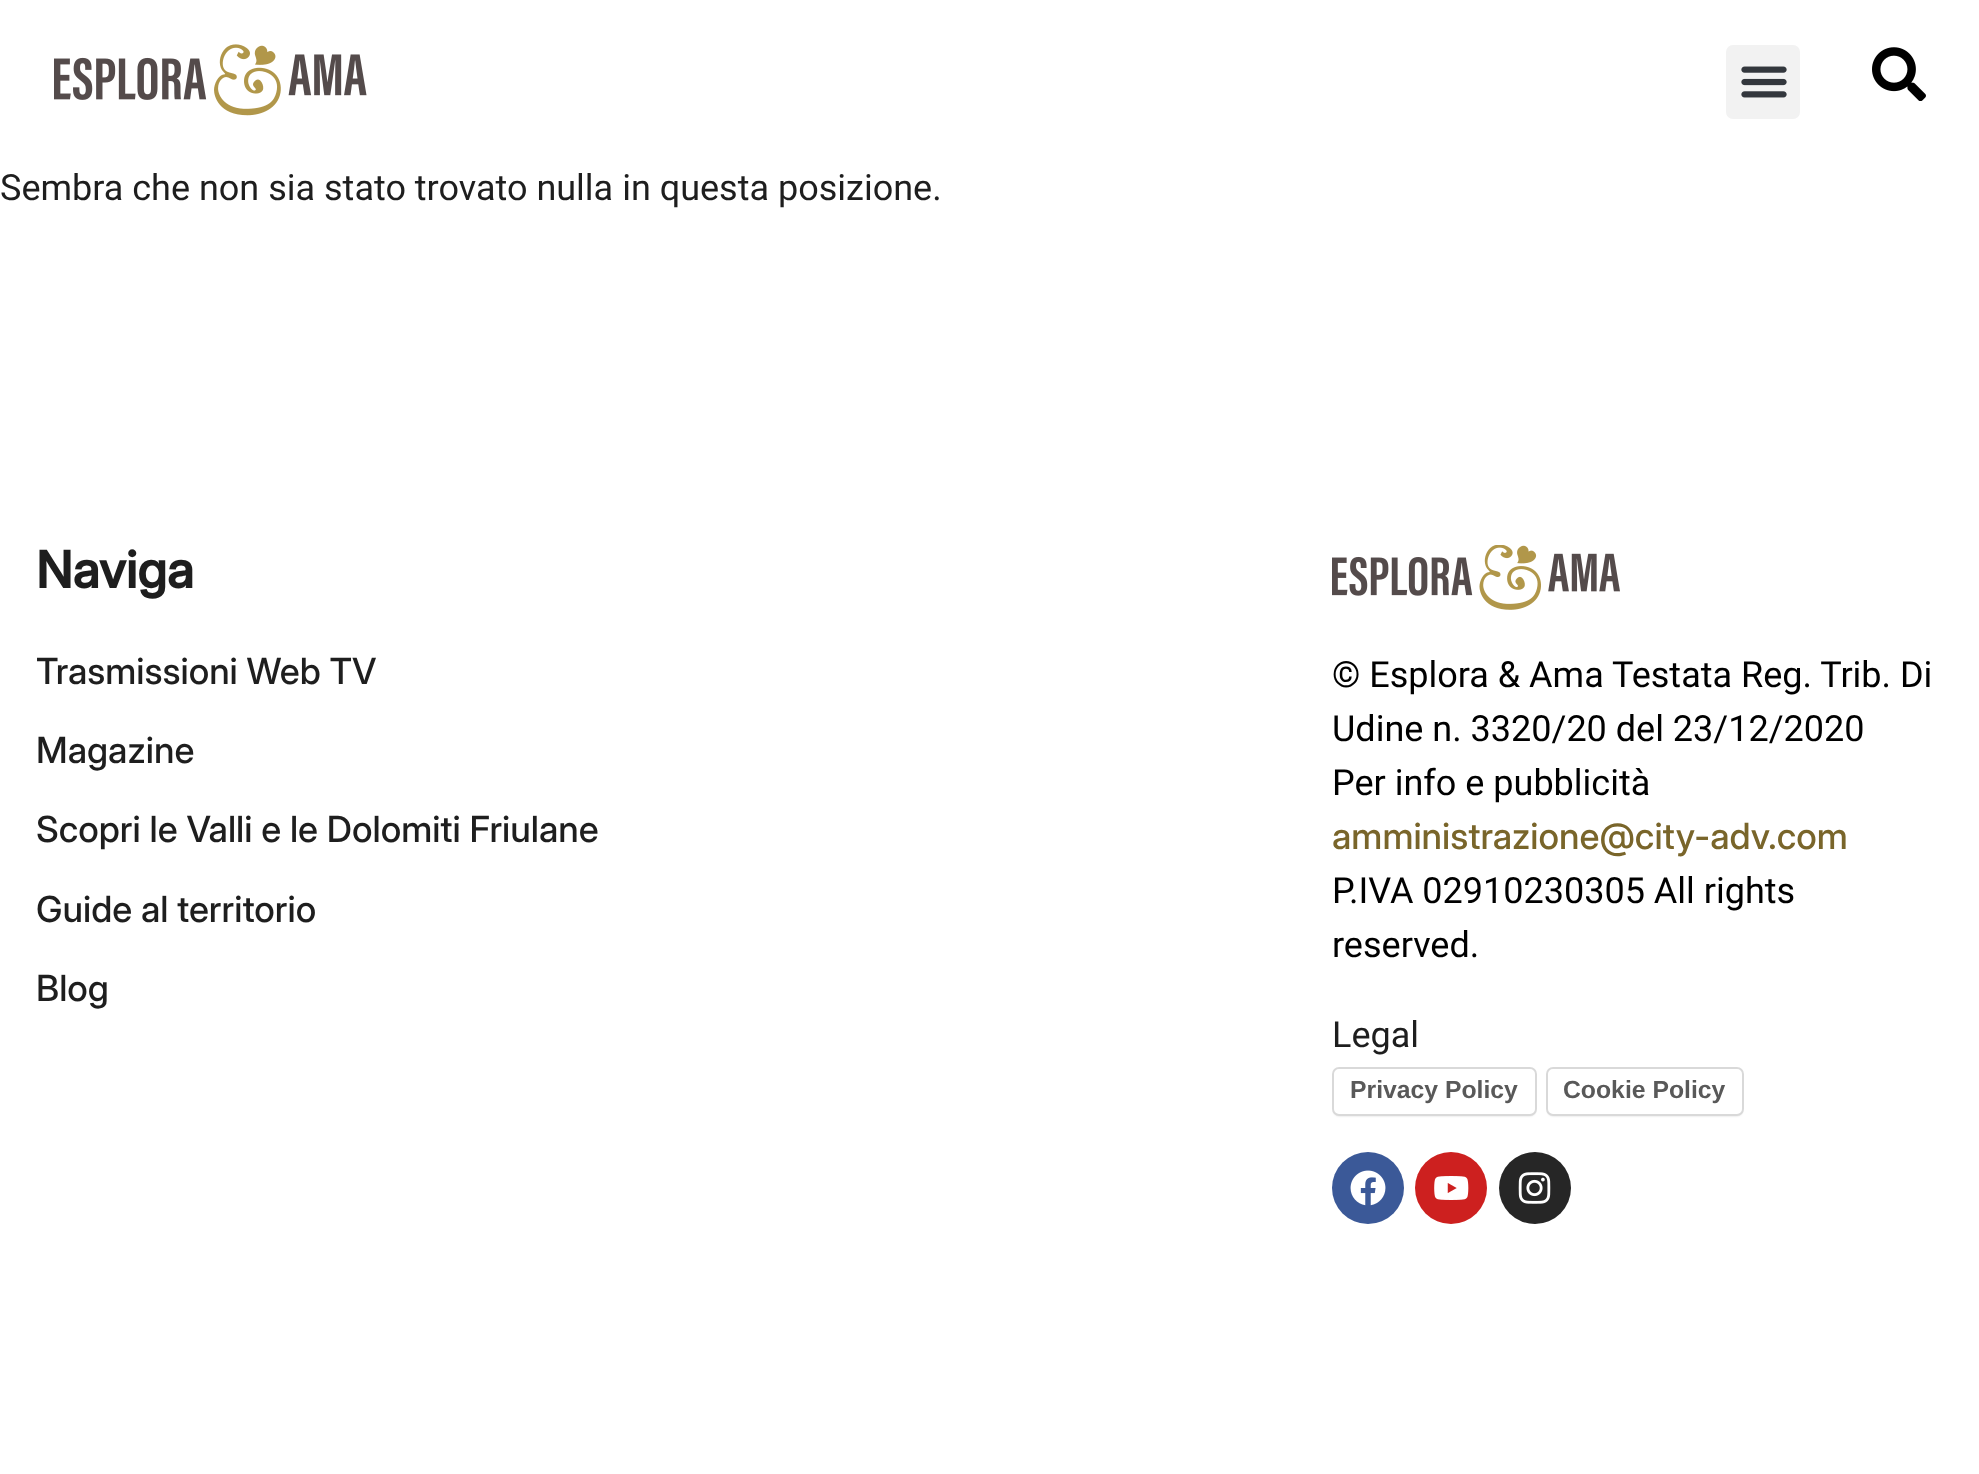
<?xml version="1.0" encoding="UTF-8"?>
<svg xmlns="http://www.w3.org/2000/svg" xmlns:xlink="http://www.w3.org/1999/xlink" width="1979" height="1474">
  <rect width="100%" height="100%" fill="#ffffff" />
  <image x="54" y="44" width="313" height="72" xlink:href="image1.png" />
  <rect x="1726" y="45" width="74" height="74" rx="7" fill="#f2f2f2" />
  <image x="1741" y="66" width="46" height="32" xlink:href="image2.png" />
  <image x="1872" y="47" width="54" height="54" xlink:href="image3.png" />
  <image x="1332" y="545" width="288" height="65" xlink:href="image4.png" />
  <rect x="1334" y="1071" width="201" height="45" rx="5" fill="#000000" fill-opacity="0.15" filter="blur(1px)" />
  <rect x="1332" y="1067" width="205" height="49" rx="7" fill="#ffffff" />
  <rect x="1333" y="1068" width="203" height="47" rx="6" fill="none" stroke="#000000" stroke-opacity="0.15" stroke-width="2" />
  <rect x="1548" y="1071" width="194" height="45" rx="5" fill="#000000" fill-opacity="0.15" filter="blur(1px)" />
  <rect x="1546" y="1067" width="198" height="49" rx="7" fill="#ffffff" />
  <rect x="1547" y="1068" width="196" height="47" rx="6" fill="none" stroke="#000000" stroke-opacity="0.15" stroke-width="2" />
  <circle cx="1368" cy="1188" r="36" fill="#3b5998" />
  <image x="1350" y="1170" width="36" height="36" xlink:href="image5.png" />
  <circle cx="1451" cy="1188" r="36" fill="#cd201f" />
  <image x="1434" y="1176" width="35" height="24" xlink:href="image6.png" />
  <circle cx="1535" cy="1188" r="36" fill="#262626" />
  <image x="1518" y="1172" width="33" height="32" xlink:href="image7.png" />
  <text x="0" y="200" style="font-family: Roboto; font-size: 36px; fill: #1e1e1e">Sembra che non sia stato trovato nulla in questa posizione.</text>
  <text x="36" y="588" style="font-family: Inter; font-size: 50.5px; font-weight: bold; fill: #1e1e1e">Naviga</text>
  <text x="36" y="684" style="font-family: Inter; font-size: 36px; font-weight: 500; fill: #1e1e1e">Trasmissioni Web TV</text>
  <text x="36" y="763" style="font-family: Inter; font-size: 36px; font-weight: 500; fill: #1e1e1e">Magazine</text>
  <text x="36" y="842" style="font-family: Inter; font-size: 36px; font-weight: 500; fill: #1e1e1e">Scopri le Valli e le Dolomiti Friulane</text>
  <text x="36" y="922" style="font-family: Inter; font-size: 36px; font-weight: 500; fill: #1e1e1e">Guide al territorio</text>
  <text x="36" y="1001" style="font-family: Inter; font-size: 36px; font-weight: 500; fill: #1e1e1e">Blog</text>
  <text x="1332" y="687" style="font-family: Roboto; font-size: 36px; fill: #000000">© Esplora &amp; Ama Testata Reg. Trib. Di</text>
  <text x="1332" y="741" style="font-family: Roboto; font-size: 36px; fill: #000000">Udine n. 3320/20 del 23/12/2020</text>
  <text x="1332" y="795" style="font-family: Roboto; font-size: 36px; fill: #000000">Per info e pubblicità</text>
  <text x="1332" y="849" style="font-family: Inter; font-size: 36px; font-weight: 500; fill: #79652a">amministrazione@city-adv.com</text>
  <text x="1332" y="903" style="font-family: Roboto; font-size: 36px; fill: #000000">P.IVA 02910230305 All rights</text>
  <text x="1332" y="957" style="font-family: Roboto; font-size: 36px; fill: #000000">reserved.</text>
  <text x="1332" y="1047" style="font-family: Roboto; font-size: 36px; fill: #1e1e1e">Legal</text>
  <text x="1350" y="1098" style="font-family: Liberation Sans; font-size: 24.75px; font-weight: bold; fill: #595959">Privacy Policy</text>
  <text x="1563" y="1098" style="font-family: Liberation Sans; font-size: 24.75px; font-weight: bold; fill: #595959">Cookie Policy</text>
</svg>
